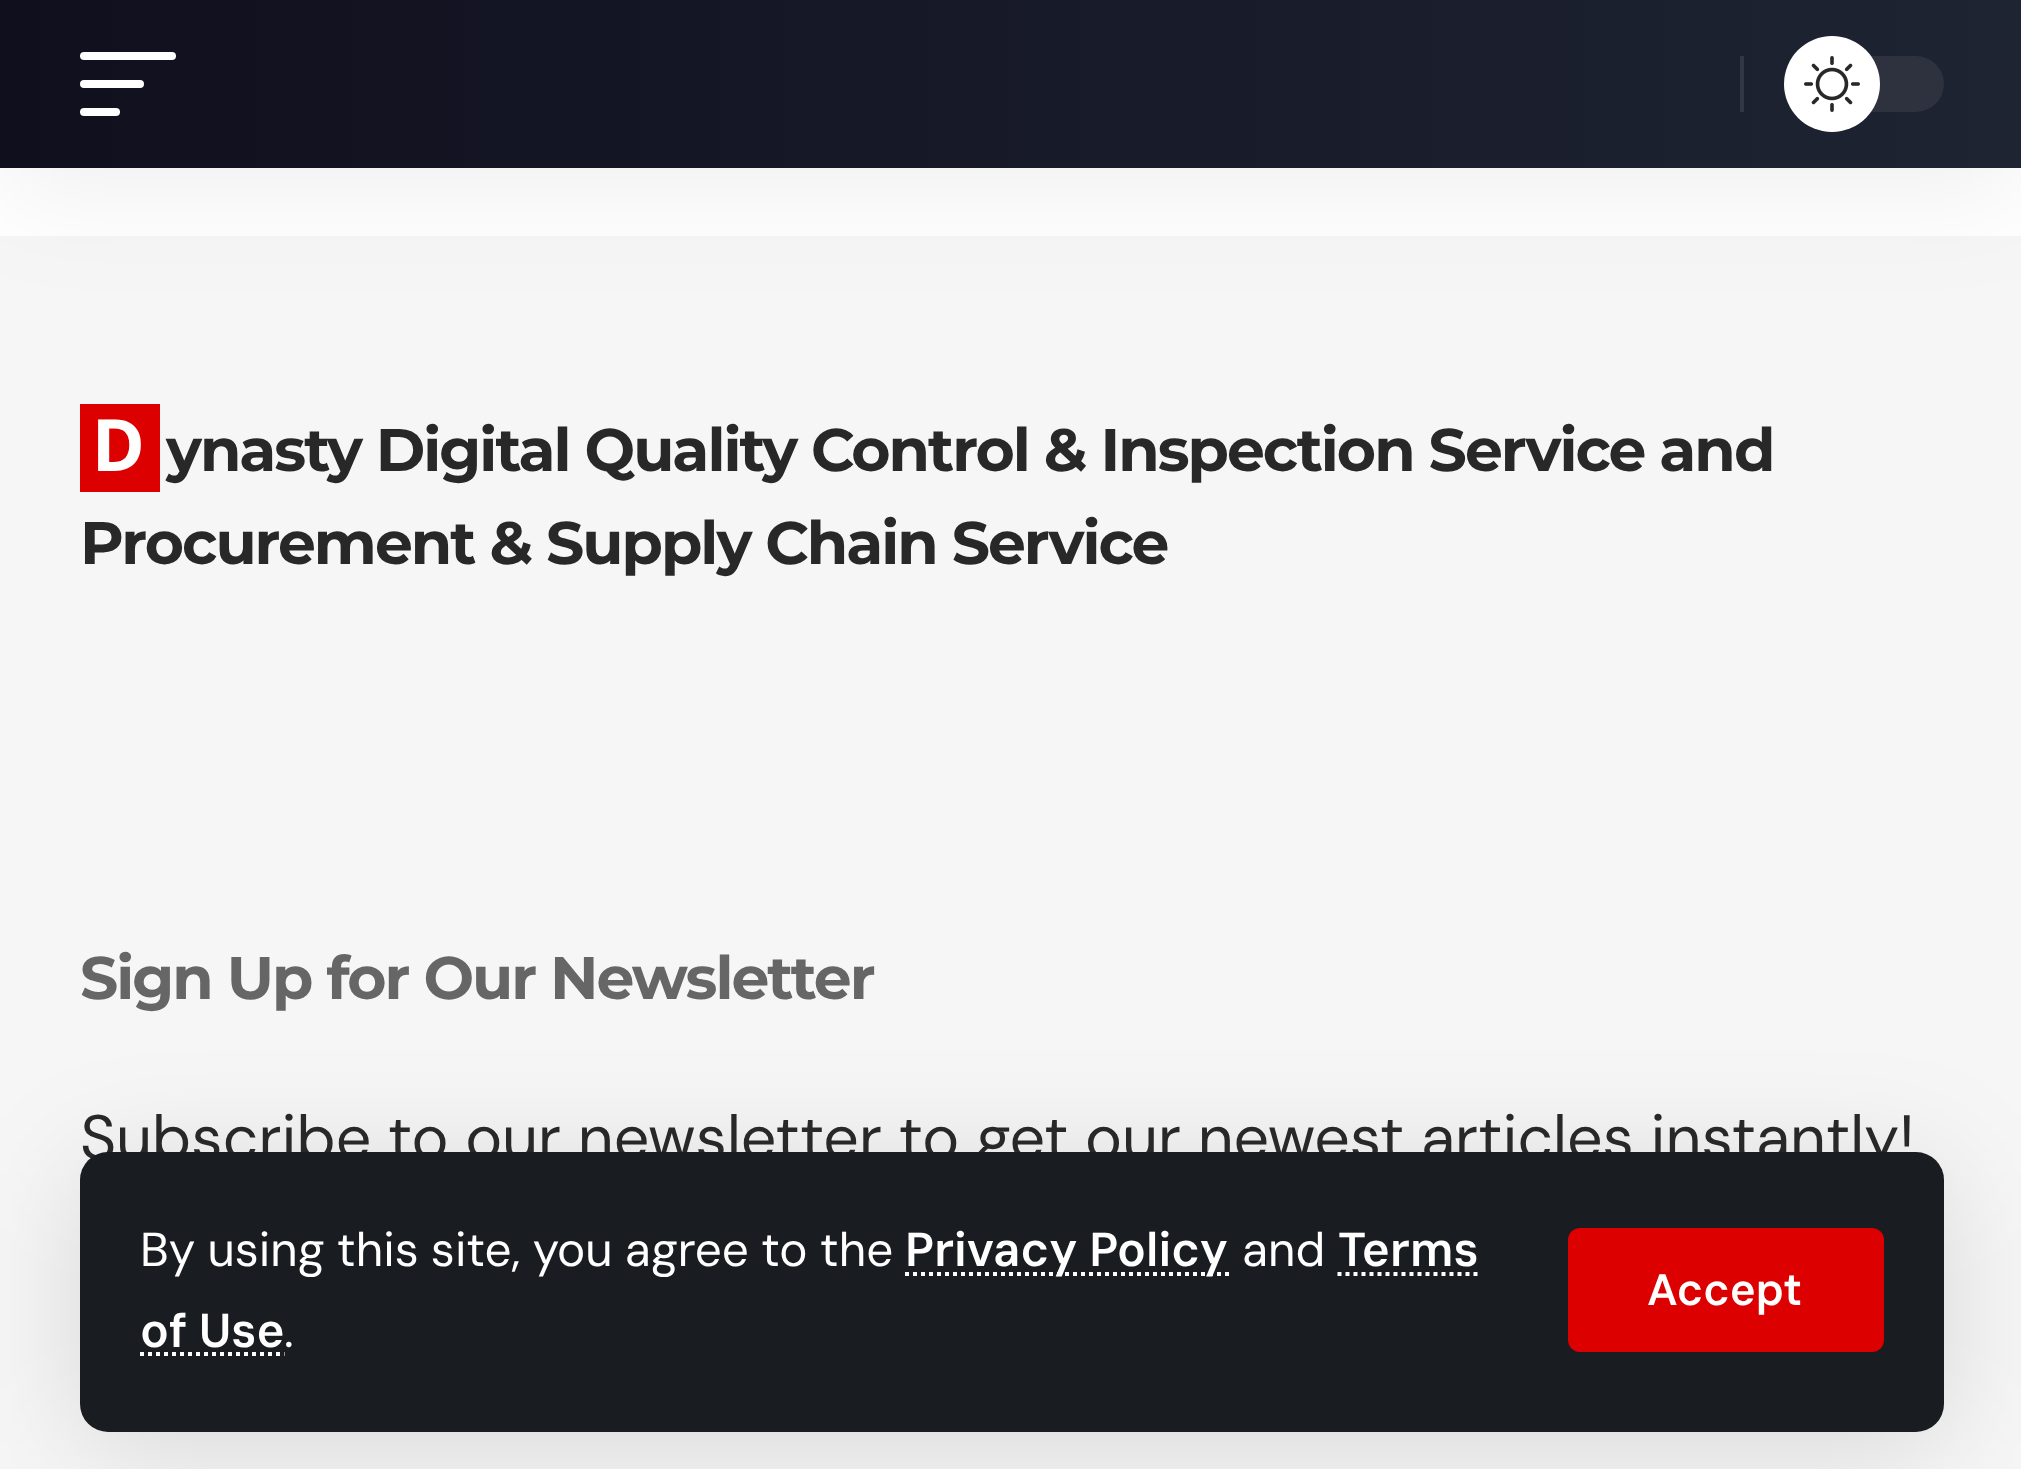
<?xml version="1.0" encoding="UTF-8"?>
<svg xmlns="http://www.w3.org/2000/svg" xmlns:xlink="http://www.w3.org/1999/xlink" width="2021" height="1469">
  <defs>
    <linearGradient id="g1" gradientUnits="userSpaceOnUse" x1="0" y1="84" x2="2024" y2="84"><stop offset="0" stop-color="#100f1e" /><stop offset="1" stop-color="#1e2432" /></linearGradient>
  </defs>
  <rect width="100%" height="100%" fill="#ffffff" />
  <rect y="236" width="2021" height="1233" fill="#f6f6f6" />
  <rect x="80" y="404" width="80" height="88" fill="#dd0000" />
  <rect y="16" width="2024" height="168" fill="#000000" fill-opacity="0.07" filter="blur(60px)" />
  <rect width="2021" height="168" fill="url(#g1)" />
  <rect x="80" y="52" width="96" height="8" rx="4" fill="#ffffff" />
  <rect x="80" y="80" width="64" height="8" rx="4" fill="#ffffff" />
  <rect x="80" y="108" width="40" height="8" rx="4" fill="#ffffff" />
  <rect x="1740" y="56" width="4" height="56" fill="#333744" />
  <rect x="1784" y="56" width="160" height="56" rx="28" fill="#2d323e" />
  <circle cx="1832" cy="84" r="48" fill="#ffffff" />
  <image x="1804" y="56" width="56" height="56" xlink:href="image1.png" />
  <rect x="80" y="1168" width="1864" height="280" rx="28" fill="#000000" fill-opacity="0.12" filter="blur(60px)" />
  <text x="92" y="471" style="font-family: Noto Sans; font-size: 72px; font-weight: bold; letter-spacing: -2px; fill: #ffffff">D</text>
  <text x="166" y="471" style="font-family: Montserrat; font-size: 60px; font-weight: bold; letter-spacing: -2px; fill: #282828">ynasty Digital Quality Control &amp; Inspection Service and</text>
  <text x="80" y="564" style="font-family: Montserrat; font-size: 60px; font-weight: bold; letter-spacing: -2px; fill: #282828">Procurement &amp; Supply Chain Service</text>
  <text x="80" y="999" style="font-family: Montserrat; font-size: 60px; font-weight: bold; letter-spacing: -2px; fill: #666666">Sign Up for Our Newsletter</text>
  <text x="80" y="1159" style="font-family: DM Sans; font-size: 62.55px; fill: #282828">Subscribe to our newsletter to get our newest articles instantly!</text>
  <rect x="80" y="1152" width="1864" height="280" rx="28" fill="#191c20" />
  <text x="140" y="1266" word-spacing="-0.5" style="font-family: 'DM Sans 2'; font-size: 47.6px; fill: #ffffff">By using this site, you agree to the</text>
  <path d="M 905 1274 h 324" fill="none" stroke="#ffffff" stroke-width="4" stroke-dasharray="4 4" />
  <text x="905" y="1266" style="font-family: DM Sans; font-size: 47.6px; font-weight: 600; fill: #ffffff">Privacy Policy</text>
  <text x="1242" y="1266" style="font-family: 'DM Sans 2'; font-size: 47.6px; fill: #ffffff">and</text>
  <text x="1338" y="1266" style="font-family: DM Sans; font-size: 47.6px; font-weight: 600; fill: #ffffff">Terms</text>
  <path d="M 1337.5 1274 h 142.5" fill="none" stroke="#ffffff" stroke-width="4" stroke-dasharray="4 4" />
  <text x="140" y="1347" style="font-family: DM Sans; font-size: 47.6px; font-weight: 600; fill: #ffffff">of Use</text>
  <path d="M 140 1354 h 144.5" fill="none" stroke="#ffffff" stroke-width="4" stroke-dasharray="4 4" />
  <text x="284" y="1347" style="font-family: 'DM Sans 2'; font-size: 47.6px; fill: #ffffff">.</text>
  <rect x="1568" y="1228" width="316" height="124" rx="12" fill="#dd0000" />
  <text x="1647" y="1305" style="font-family: DM Sans; font-size: 44px; font-weight: 600; fill: #ffffff">Accept</text>
</svg>
